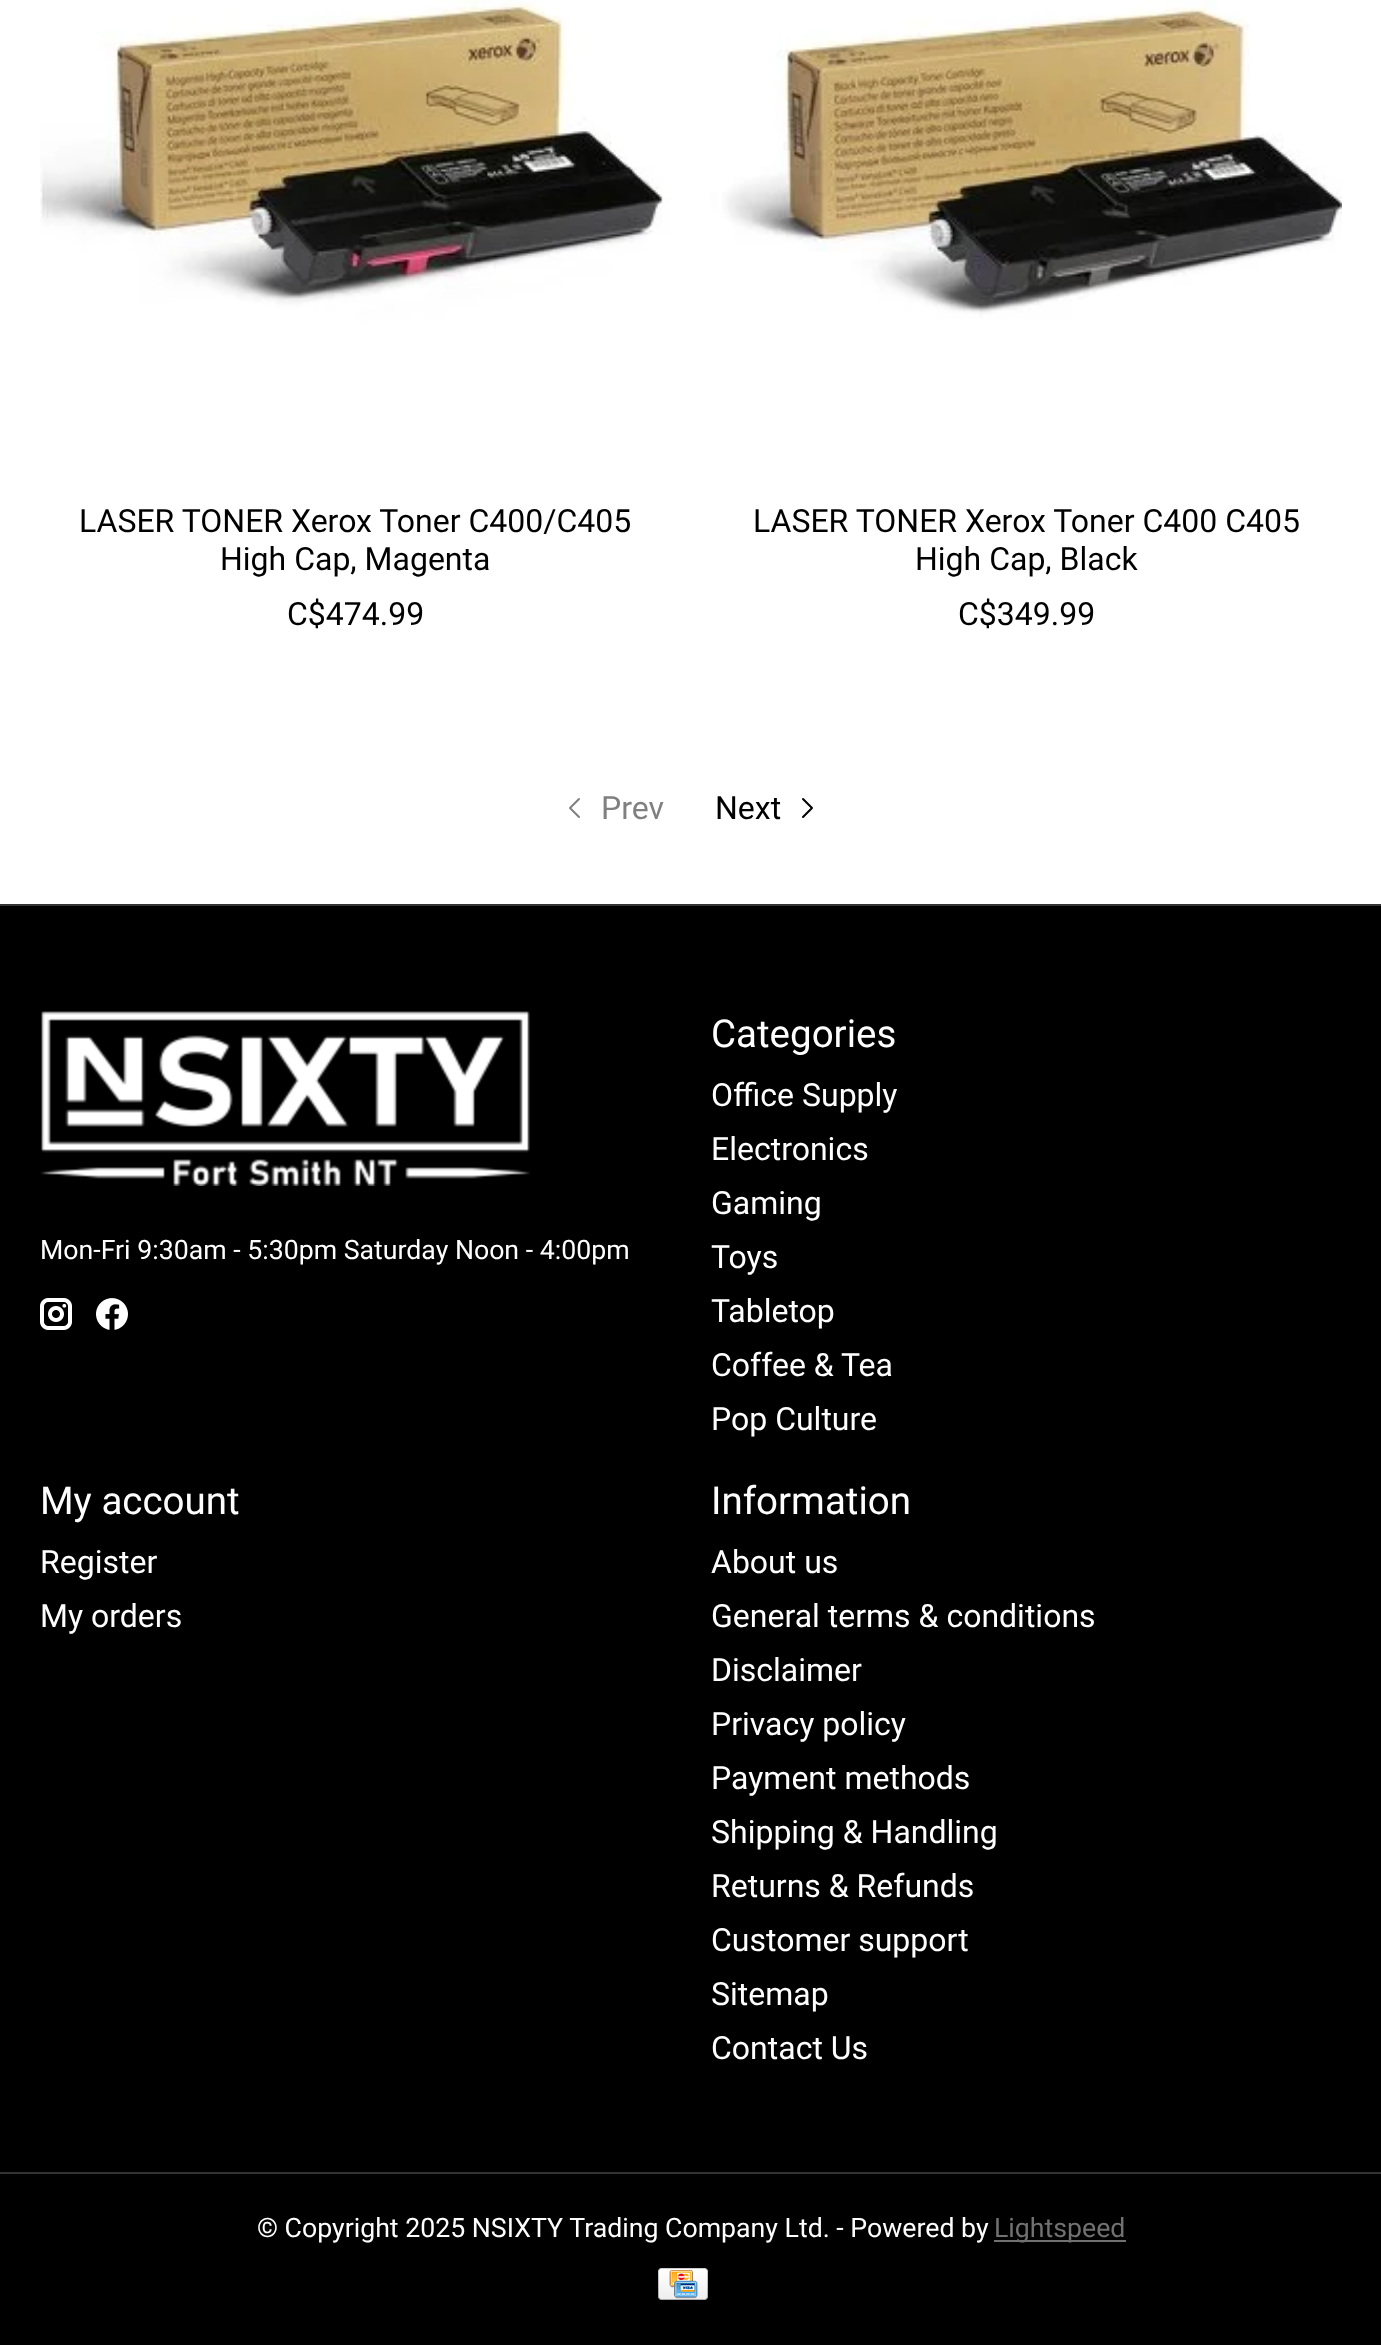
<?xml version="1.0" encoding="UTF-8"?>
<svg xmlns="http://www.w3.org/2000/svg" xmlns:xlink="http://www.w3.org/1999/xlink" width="1381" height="2345">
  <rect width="100%" height="100%" fill="#ffffff" />
  <image x="40" y="0" width="630" height="478" xlink:href="image1.png" />
  <image x="710" y="0" width="632" height="478" xlink:href="image2.png" />
  <path d="M 579 799 l -9 9 l 9 9" fill="none" stroke="#808080" stroke-width="2" stroke-linecap="round" stroke-linejoin="round" />
  <path d="M 803 799 l 9 9 l -9 9" fill="none" stroke="#000000" stroke-width="2" stroke-linecap="round" stroke-linejoin="round" />
  <rect y="906" width="1381" height="1439" fill="#000000" />
  <rect y="904" width="1381" height="2" fill="#333333" />
  <image x="40" y="1011" width="490" height="175" xlink:href="image3.png" />
  <image x="40" y="1298" width="32" height="32" xlink:href="image4.png" />
  <image x="96" y="1298" width="32" height="32" xlink:href="image5.png" />
  <rect y="2172" width="1381" height="2" fill="#333333" />
  <rect x="994" y="2240" width="132" height="2" fill="#717171" />
  <image x="658" y="2268" width="50" height="32" xlink:href="image6.png" />
  <text x="79" y="532" style="font-family: Roboto; font-size: 32px; fill: #000000">LASER TONER Xerox Toner C400/C405</text>
  <text x="220" y="570" style="font-family: Roboto; font-size: 32px; fill: #000000">High Cap, Magenta</text>
  <text x="287" y="625" style="font-family: Roboto; font-size: 32px; fill: #000000">C$474.99</text>
  <text x="753" y="532" style="font-family: Roboto; font-size: 32px; fill: #000000">LASER TONER Xerox Toner C400 C405</text>
  <text x="915" y="570" style="font-family: Roboto; font-size: 32px; fill: #000000">High Cap, Black</text>
  <text x="958" y="625" style="font-family: Roboto; font-size: 32px; fill: #000000">C$349.99</text>
  <text x="601" y="819" style="font-family: Roboto; font-size: 32px; fill: #808080">Prev</text>
  <text x="715" y="819" style="font-family: Roboto; font-size: 32px; fill: #000000">Next</text>
  <text x="40" y="1259" style="font-family: Roboto; font-size: 26.7px; fill: #ffffff">Mon-Fri 9:30am - 5:30pm Saturday Noon - 4:00pm</text>
  <text x="711" y="1047" style="font-family: Roboto; font-size: 38.5px; fill: #ffffff">Categories</text>
  <text x="711" y="1106" style="font-family: Roboto; font-size: 32px; fill: #ffffff">Office Supply</text>
  <text x="711" y="1160" style="font-family: Roboto; font-size: 32px; fill: #ffffff">Electronics</text>
  <text x="711" y="1214" style="font-family: Roboto; font-size: 32px; fill: #ffffff">Gaming</text>
  <text x="711" y="1268" style="font-family: Roboto; font-size: 32px; fill: #ffffff">Toys</text>
  <text x="711" y="1322" style="font-family: Roboto; font-size: 32px; fill: #ffffff">Tabletop</text>
  <text x="711" y="1376" style="font-family: Roboto; font-size: 32px; fill: #ffffff">Coffee &amp; Tea</text>
  <text x="711" y="1430" style="font-family: Roboto; font-size: 32px; fill: #ffffff">Pop Culture</text>
  <text x="40" y="1514" style="font-family: Roboto; font-size: 38.5px; fill: #ffffff">My account</text>
  <text x="40" y="1573" style="font-family: Roboto; font-size: 32px; fill: #ffffff">Register</text>
  <text x="40" y="1627" style="font-family: Roboto; font-size: 32px; fill: #ffffff">My orders</text>
  <text x="711" y="1514" style="font-family: Roboto; font-size: 38.5px; fill: #ffffff">Information</text>
  <text x="711" y="1573" style="font-family: Roboto; font-size: 32px; fill: #ffffff">About us</text>
  <text x="711" y="1627" style="font-family: Roboto; font-size: 32px; fill: #ffffff">General terms &amp; conditions</text>
  <text x="711" y="1681" style="font-family: Roboto; font-size: 32px; fill: #ffffff">Disclaimer</text>
  <text x="711" y="1735" style="font-family: Roboto; font-size: 32px; fill: #ffffff">Privacy policy</text>
  <text x="711" y="1789" style="font-family: Roboto; font-size: 32px; fill: #ffffff">Payment methods</text>
  <text x="711" y="1843" style="font-family: Roboto; font-size: 32px; fill: #ffffff">Shipping &amp; Handling</text>
  <text x="711" y="1897" style="font-family: Roboto; font-size: 32px; fill: #ffffff">Returns &amp; Refunds</text>
  <text x="711" y="1951" style="font-family: Roboto; font-size: 32px; fill: #ffffff">Customer support</text>
  <text x="711" y="2005" style="font-family: Roboto; font-size: 32px; fill: #ffffff">Sitemap</text>
  <text x="711" y="2059" style="font-family: Roboto; font-size: 32px; fill: #ffffff">Contact Us</text>
  <text x="257" y="2237" style="font-family: Roboto; font-size: 26.7px; fill: #ffffff">© Copyright 2025 NSIXTY Trading Company Ltd. - Powered by</text>
  <text x="994" y="2237" style="font-family: Roboto; font-size: 26.7px; fill: #717171">Lightspeed</text>
</svg>
